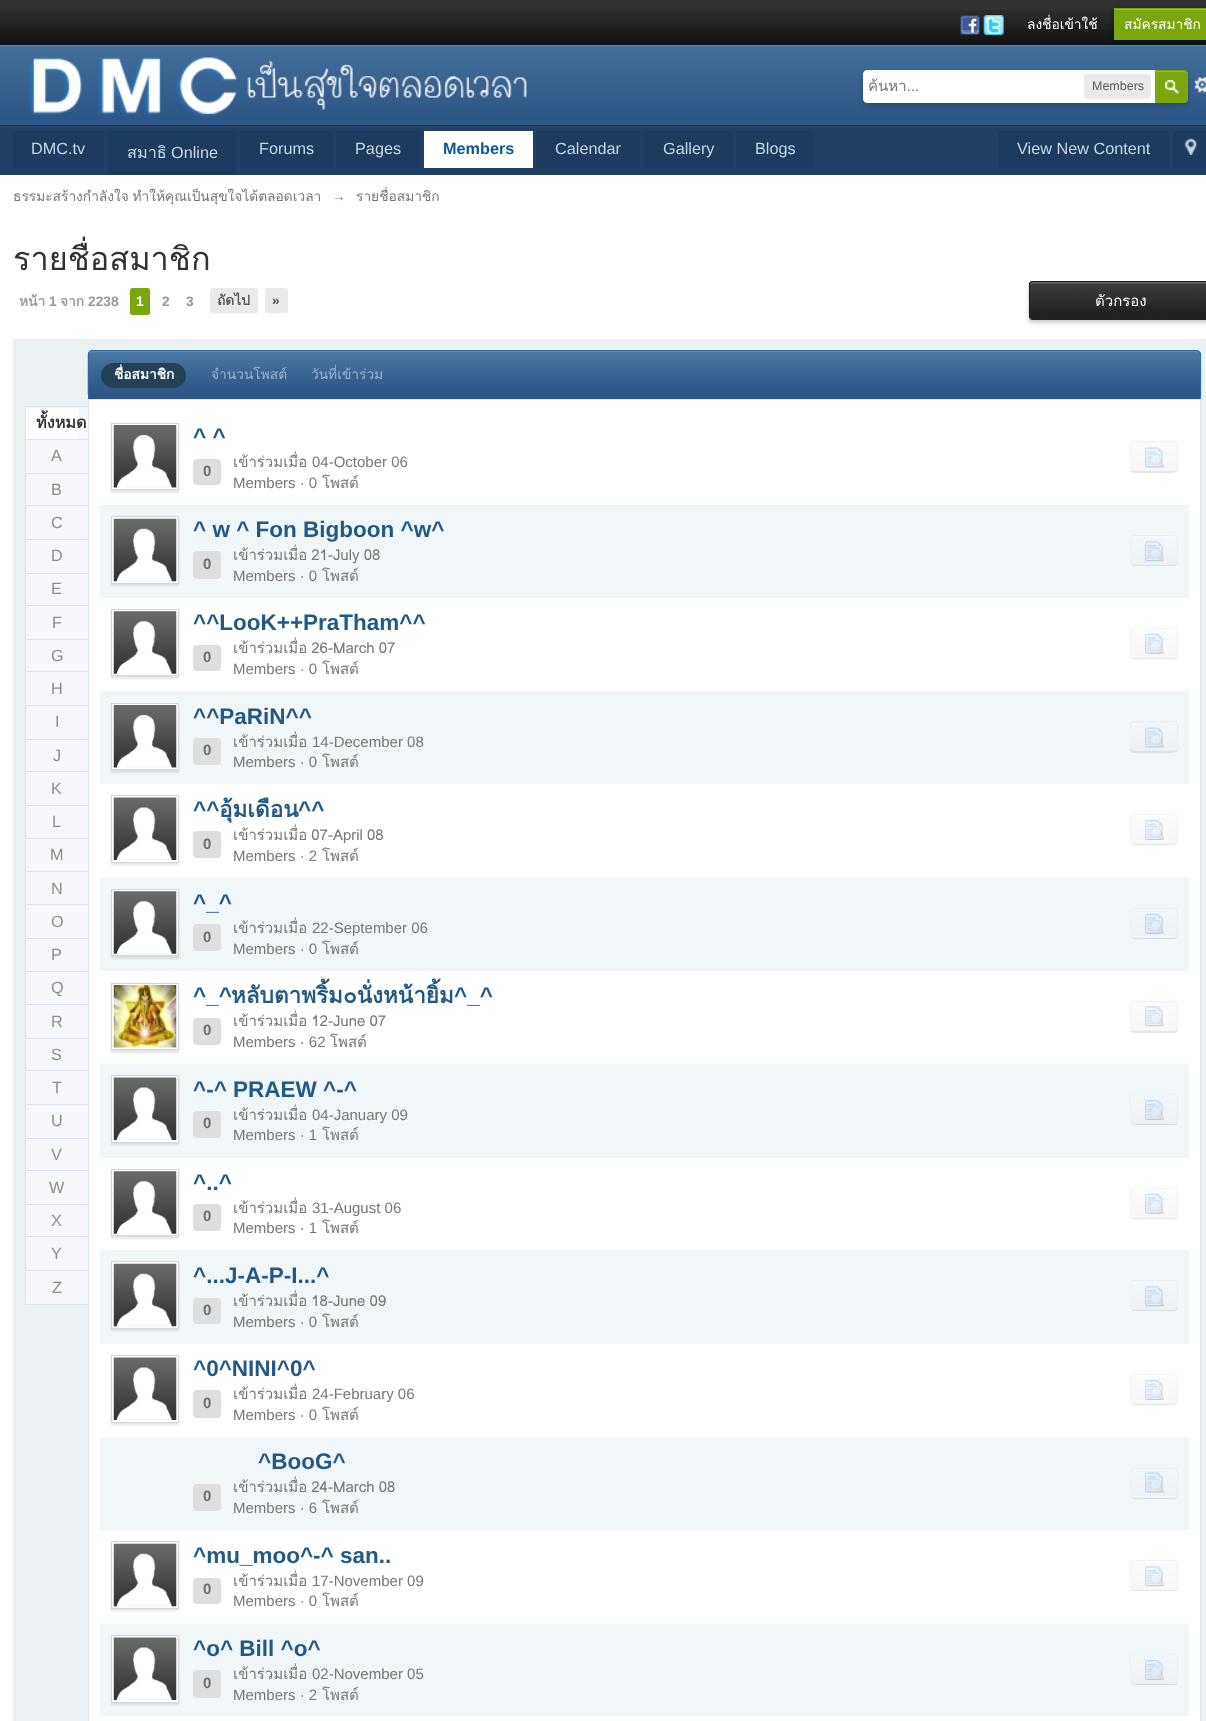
<?xml version="1.0" encoding="UTF-8"?>
<svg xmlns="http://www.w3.org/2000/svg" xmlns:xlink="http://www.w3.org/1999/xlink" width="1206" height="1721">
  <defs>
    <clipPath id="clip1"><rect x="1130" y="441" width="48" height="30" rx="4" /></clipPath>
    <linearGradient id="g1" gradientUnits="userSpaceOnUse" x1="1131" y1="415" x2="1131" y2="443"><stop offset="0" stop-color="#fcfcfc" /><stop offset="1" stop-color="#f7f7f7" /></linearGradient>
    <linearGradient id="g2" gradientUnits="userSpaceOnUse" x1="1131" y1="443" x2="1131" y2="470"><stop offset="0" stop-color="#fcfcfc" /><stop offset="1" stop-color="#f7f7f7" /></linearGradient>
    <clipPath id="clip2"><rect x="1130" y="535" width="48" height="30" rx="4" /></clipPath>
    <linearGradient id="g3" gradientUnits="userSpaceOnUse" x1="1131" y1="536" x2="1131" y2="564"><stop offset="0" stop-color="#f3f6f8" /><stop offset="1" stop-color="#edf1f3" /></linearGradient>
    <clipPath id="clip3"><rect x="1130" y="628" width="48" height="30" rx="4" /></clipPath>
    <linearGradient id="g4" gradientUnits="userSpaceOnUse" x1="1131" y1="629" x2="1131" y2="656"><stop offset="0" stop-color="#fcfcfc" /><stop offset="1" stop-color="#f7f7f7" /></linearGradient>
    <linearGradient id="g5" gradientUnits="userSpaceOnUse" x1="1131" y1="656" x2="1131" y2="684"><stop offset="0" stop-color="#fcfcfc" /><stop offset="1" stop-color="#f7f7f7" /></linearGradient>
    <clipPath id="clip4"><rect x="1130" y="721" width="48" height="30" rx="4" /></clipPath>
    <linearGradient id="g6" gradientUnits="userSpaceOnUse" x1="1131" y1="695" x2="1131" y2="723"><stop offset="0" stop-color="#f3f6f8" /><stop offset="1" stop-color="#edf1f3" /></linearGradient>
    <linearGradient id="g7" gradientUnits="userSpaceOnUse" x1="1131" y1="723" x2="1131" y2="750"><stop offset="0" stop-color="#f3f6f8" /><stop offset="1" stop-color="#edf1f3" /></linearGradient>
    <clipPath id="clip5"><rect x="1130" y="814" width="48" height="30" rx="4" /></clipPath>
    <linearGradient id="g8" gradientUnits="userSpaceOnUse" x1="1131" y1="815" x2="1131" y2="843"><stop offset="0" stop-color="#fcfcfc" /><stop offset="1" stop-color="#f7f7f7" /></linearGradient>
    <clipPath id="clip6"><rect x="1130" y="908" width="48" height="30" rx="4" /></clipPath>
    <linearGradient id="g9" gradientUnits="userSpaceOnUse" x1="1131" y1="909" x2="1131" y2="936"><stop offset="0" stop-color="#f3f6f8" /><stop offset="1" stop-color="#edf1f3" /></linearGradient>
    <linearGradient id="g10" gradientUnits="userSpaceOnUse" x1="1131" y1="936" x2="1131" y2="964"><stop offset="0" stop-color="#f3f6f8" /><stop offset="1" stop-color="#edf1f3" /></linearGradient>
    <clipPath id="clip7"><rect x="1130" y="1001" width="48" height="30" rx="4" /></clipPath>
    <linearGradient id="g11" gradientUnits="userSpaceOnUse" x1="1131" y1="975" x2="1131" y2="1003"><stop offset="0" stop-color="#fcfcfc" /><stop offset="1" stop-color="#f7f7f7" /></linearGradient>
    <linearGradient id="g12" gradientUnits="userSpaceOnUse" x1="1131" y1="1003" x2="1131" y2="1030"><stop offset="0" stop-color="#fcfcfc" /><stop offset="1" stop-color="#f7f7f7" /></linearGradient>
    <clipPath id="clip8"><rect x="1130" y="1094" width="48" height="30" rx="4" /></clipPath>
    <linearGradient id="g13" gradientUnits="userSpaceOnUse" x1="1131" y1="1095" x2="1131" y2="1123"><stop offset="0" stop-color="#f3f6f8" /><stop offset="1" stop-color="#edf1f3" /></linearGradient>
    <clipPath id="clip9"><rect x="1130" y="1188" width="48" height="30" rx="4" /></clipPath>
    <linearGradient id="g14" gradientUnits="userSpaceOnUse" x1="1131" y1="1189" x2="1131" y2="1216"><stop offset="0" stop-color="#fcfcfc" /><stop offset="1" stop-color="#f7f7f7" /></linearGradient>
    <linearGradient id="g15" gradientUnits="userSpaceOnUse" x1="1131" y1="1216" x2="1131" y2="1244"><stop offset="0" stop-color="#fcfcfc" /><stop offset="1" stop-color="#f7f7f7" /></linearGradient>
    <clipPath id="clip10"><rect x="1130" y="1280" width="48" height="30" rx="4" /></clipPath>
    <linearGradient id="g16" gradientUnits="userSpaceOnUse" x1="1131" y1="1281" x2="1131" y2="1309"><stop offset="0" stop-color="#f3f6f8" /><stop offset="1" stop-color="#edf1f3" /></linearGradient>
    <clipPath id="clip11"><rect x="1130" y="1374" width="48" height="30" rx="4" /></clipPath>
    <linearGradient id="g17" gradientUnits="userSpaceOnUse" x1="1131" y1="1375" x2="1131" y2="1403"><stop offset="0" stop-color="#fcfcfc" /><stop offset="1" stop-color="#f7f7f7" /></linearGradient>
    <clipPath id="clip12"><rect x="1130" y="1468" width="48" height="30" rx="4" /></clipPath>
    <linearGradient id="g18" gradientUnits="userSpaceOnUse" x1="1131" y1="1469" x2="1131" y2="1496"><stop offset="0" stop-color="#f3f6f8" /><stop offset="1" stop-color="#edf1f3" /></linearGradient>
    <linearGradient id="g19" gradientUnits="userSpaceOnUse" x1="1131" y1="1496" x2="1131" y2="1524"><stop offset="0" stop-color="#f3f6f8" /><stop offset="1" stop-color="#edf1f3" /></linearGradient>
    <clipPath id="clip13"><rect x="1130" y="1560" width="48" height="30" rx="4" /></clipPath>
    <linearGradient id="g20" gradientUnits="userSpaceOnUse" x1="1131" y1="1561" x2="1131" y2="1589"><stop offset="0" stop-color="#fcfcfc" /><stop offset="1" stop-color="#f7f7f7" /></linearGradient>
    <clipPath id="clip14"><rect x="1130" y="1654" width="48" height="30" rx="4" /></clipPath>
    <linearGradient id="g21" gradientUnits="userSpaceOnUse" x1="1131" y1="1655" x2="1131" y2="1683"><stop offset="0" stop-color="#f3f6f8" /><stop offset="1" stop-color="#edf1f3" /></linearGradient>
    <clipPath id="clip15"><rect x="868" y="78" width="162" height="17" /></clipPath>
  </defs>
  <rect width="100%" height="100%" fill="#323232" />
  <image x="0" y="10" width="1206" height="35" xlink:href="image1.png" />
  <image x="960" y="15" width="20" height="20" xlink:href="image2.png" />
  <image x="983" y="15" width="21" height="20" xlink:href="image3.png" />
  <image x="0" y="45" width="1206" height="80" xlink:href="image4.png" />
  <rect x="1114" y="9" width="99" height="32" fill="#000000" fill-opacity="0.4" filter="blur(2.5px)" />
  <rect x="1114" y="8" width="92" height="32" fill="#7ba60d" />
  <rect x="1115" y="9" width="91" height="1" fill="#95b83d" />
  <rect y="125" width="1206" height="1" fill="#1b3759" />
  <image x="28" y="56" width="499" height="62" xlink:href="image5.png" />
  <image x="1194" y="77" width="12" height="16" xlink:href="image7.png" />
  <rect x="863" y="73" width="325" height="32" rx="5" fill="#000000" fill-opacity="0.2" filter="blur(2.5px)" />
  <path d="M 867 70 h 316 c 3 0 5 2 5 5 v 23 c 0 3 -2 5 -5 5 h -316 c -2 0 -4 -2 -4 -4 v -25 c 0 -2 2 -4 4 -4 z" fill="#ffffff" />
  <rect x="1084" y="74" width="67" height="25" rx="4" fill="#eaeaea" />
  <path d="M 1155 70 h 29 c 2 0 4 2 4 4 v 25 c 0 2 -2 4 -4 4 h -29 z" fill="#7ba60d" />
  <image x="1165" y="80" width="14" height="14" xlink:href="image6.png" />
  <path d="M 1156 72 h 28 c 1 0 2 2 2 3 v -1.5 c 0 -1.5 -1 -2.5 -2.5 -2.5 h -27.5 z" fill="#95b83d" />
  <path d="M 1155.5 70.5 h 28.5 c 2 0 3.5 1.5 3.5 3.5 v 25 c 0 2 -1.5 3.5 -3.5 3.5 h -28.5 z" fill="none" stroke="#7ba60d" />
  <rect y="126" width="1206" height="49" fill="#204066" />
  <rect x="13" y="131" width="91" height="37" fill="#1c3b5f" />
  <rect x="108" y="131" width="128" height="44" fill="#1c3b5f" />
  <rect x="240" y="131" width="93" height="37" fill="#1c3b5f" />
  <rect x="336" y="131" width="84" height="37" fill="#1c3b5f" />
  <rect x="424" y="131" width="109" height="37" fill="#ffffff" />
  <rect x="536" y="131" width="104" height="37" fill="#1c3b5f" />
  <rect x="644" y="131" width="89" height="37" fill="#1c3b5f" />
  <rect x="736" y="131" width="79" height="37" fill="#1c3b5f" />
  <rect x="998" y="131" width="171" height="37" fill="#1c3b5f" />
  <rect x="1173" y="131" width="33" height="37" fill="#1c3b5f" />
  <image x="1184" y="138" width="13" height="17" xlink:href="image8.png" />
  <rect y="175" width="1206" height="1546" fill="#ffffff" />
  <rect x="130" y="288" width="20" height="27" rx="2.5" fill="#7ba60d" />
  <rect x="210" y="288" width="48" height="25" rx="2.5" fill="#eaeaea" />
  <rect x="265" y="288" width="23" height="25" rx="2.5" fill="#eaeaea" />
  <rect x="1029" y="284" width="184" height="39" rx="4" fill="#000000" fill-opacity="0.2" filter="blur(2px)" />
  <path d="M 1032 282 h 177 c 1 0 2 2 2 3 v 31 c 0 2 -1 4 -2 4 h -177 c -1 0 -2 -2 -2 -4 v -31 c 0 -1 1 -3 2 -3 z" fill="#212121" />
  <image x="1028" y="282" width="178" height="36" xlink:href="image9.png" />
  <path d="M 1032 284 h 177 c 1 0 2 1 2 2 v 32 v -33 c 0 -1 -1 -3 -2 -3 h -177 c -1 0 -2 2 -2 3 v 1 c 0 -1 1 -2 2 -2 z" fill="#5c5c5c" />
  <path d="M 1032 281 h 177 c 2 0 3 2 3 4 v 31 c 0 2 -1 4 -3 4 h -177 c -2 0 -3 -2 -3 -4 v -31 c 0 -2 1 -4 3 -4 z m 0 1 h 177 c 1 0 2 2 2 3 v 31 c 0 2 -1 4 -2 4 h -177 c -1 0 -2 -2 -2 -4 v -31 c 0 -1 1 -3 2 -3 z" fill="#212121" fill-rule="evenodd" />
  <rect x="13" y="339" width="1193" height="1382" fill="#ebf0f3" />
  <rect x="25" y="406" width="63" height="1" fill="#dbe4ef" />
  <rect x="25" y="406" width="1" height="899" fill="#dbe4ef" />
  <rect x="78" y="408" width="10" height="31" fill="#f6f8fb" />
  <rect x="26" y="439" width="62" height="1" fill="#dbe4ef" />
  <rect x="26" y="408" width="52" height="31" fill="#ffffff" />
  <rect x="26" y="440" width="62" height="33" fill="#f6f8fb" />
  <rect x="26" y="473" width="62" height="1" fill="#dbe4ef" />
  <rect x="26" y="474" width="62" height="31" fill="#f6f8fb" />
  <rect x="26" y="505" width="62" height="1" fill="#dbe4ef" />
  <rect x="26" y="506" width="62" height="33" fill="#f6f8fb" />
  <rect x="26" y="539" width="62" height="1" fill="#dbe4ef" />
  <rect x="26" y="540" width="62" height="33" fill="#f6f8fb" />
  <rect x="26" y="573" width="62" height="1" fill="#dbe4ef" />
  <rect x="26" y="574" width="62" height="31" fill="#f6f8fb" />
  <rect x="26" y="605" width="62" height="1" fill="#dbe4ef" />
  <rect x="26" y="606" width="62" height="33" fill="#f6f8fb" />
  <rect x="26" y="639" width="62" height="1" fill="#dbe4ef" />
  <rect x="26" y="640" width="62" height="65" fill="#f6f8fb" />
  <rect x="26" y="671" width="62" height="1" fill="#dbe4ef" />
  <rect x="26" y="705" width="62" height="1" fill="#dbe4ef" />
  <rect x="26" y="706" width="62" height="33" fill="#f6f8fb" />
  <rect x="26" y="739" width="62" height="1" fill="#dbe4ef" />
  <rect x="26" y="740" width="62" height="65" fill="#f6f8fb" />
  <rect x="26" y="771" width="62" height="1" fill="#dbe4ef" />
  <rect x="26" y="805" width="62" height="1" fill="#dbe4ef" />
  <rect x="26" y="806" width="62" height="32" fill="#f6f8fb" />
  <rect x="26" y="838" width="62" height="1" fill="#dbe4ef" />
  <rect x="26" y="839" width="62" height="65" fill="#f6f8fb" />
  <rect x="26" y="871" width="62" height="1" fill="#dbe4ef" />
  <rect x="26" y="904" width="62" height="1" fill="#dbe4ef" />
  <rect x="26" y="905" width="62" height="33" fill="#f6f8fb" />
  <rect x="26" y="938" width="62" height="1" fill="#dbe4ef" />
  <rect x="26" y="939" width="62" height="65" fill="#f6f8fb" />
  <rect x="26" y="971" width="62" height="1" fill="#dbe4ef" />
  <rect x="26" y="1004" width="62" height="1" fill="#dbe4ef" />
  <rect x="26" y="1005" width="62" height="33" fill="#f6f8fb" />
  <rect x="26" y="1038" width="62" height="1" fill="#dbe4ef" />
  <rect x="26" y="1039" width="62" height="31" fill="#f6f8fb" />
  <rect x="26" y="1070" width="62" height="1" fill="#dbe4ef" />
  <rect x="26" y="1071" width="62" height="33" fill="#f6f8fb" />
  <rect x="26" y="1104" width="62" height="1" fill="#dbe4ef" />
  <rect x="26" y="1105" width="62" height="33" fill="#f6f8fb" />
  <rect x="26" y="1138" width="62" height="1" fill="#dbe4ef" />
  <rect x="26" y="1139" width="62" height="31" fill="#f6f8fb" />
  <rect x="26" y="1170" width="62" height="1" fill="#dbe4ef" />
  <rect x="26" y="1171" width="62" height="33" fill="#f6f8fb" />
  <rect x="26" y="1204" width="62" height="1" fill="#dbe4ef" />
  <rect x="26" y="1205" width="62" height="65" fill="#f6f8fb" />
  <rect x="26" y="1236" width="62" height="1" fill="#dbe4ef" />
  <rect x="26" y="1270" width="62" height="1" fill="#dbe4ef" />
  <rect x="26" y="1271" width="62" height="33" fill="#f6f8fb" />
  <rect x="26" y="1304" width="62" height="1" fill="#dbe4ef" />
  <path d="M 93 351 h 1103 c 2 0 4 2 4 4 v 44 h -1111 v -44 c 0 -2 2 -4 4 -4 z" fill="#2c5687" />
  <image x="87" y="351" width="1115" height="44" xlink:href="image10.png" />
  <path d="M 92 352 h 1104 c 2 0 4 2 4 4 c 0 -3 -1 -5 -4 -5 h -1103 c -3 0 -4 2 -4 5 c 0 -2 1 -4 3 -4 z" fill="#528cbc" />
  <path d="M 92 350 h 1104 c 3 0 5 2 5 5 v 44 h -1113 v -44 c 0 -3 2 -5 4 -5 z m 0 1 h 1104 c 2 0 4 2 4 4 v 44 h -1111 v -44 c 0 -2 1 -4 3 -4 z" fill="#316897" fill-rule="evenodd" />
  <rect x="101" y="363" width="85" height="25" rx="12.5" fill="#244156" />
  <rect x="88.5" y="399.5" width="1112" height="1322" fill="#ffffff" stroke="#dbe4ef" />
  <rect x="111" y="425" width="68" height="68" fill="#000000" fill-opacity="0.1" filter="blur(1px)" />
  <rect x="111.5" y="423.5" width="67" height="66" fill="#ffffff" stroke="#d5d5d5" />
  <image x="113" y="425" width="64" height="63" xlink:href="image11.png" />
  <path d="M 1130 468 c 0 6 5 5 11 5 h 26 c 14 0 11 -1 11 -15 c 0 -3 1 -10 0 -13 v 23 c 0 2 -2 3 -4 3 h -40 c -2 0 -4 -1 -4 -3 z" fill="#e8e8e8" />
  <g clip-path="url(#clip1)">
    <rect x="1130" y="441" width="48" height="2" fill="url(#g1)" />
    <rect x="1130" y="443" width="48" height="27" fill="url(#g2)" />
  </g>
  <path d="M 1134 444 h 41 l 1 2 c 0 -5 -7 -3 -9 -3 h -27 c -7 0 -9 -2 -9 5 c 0 -2 1 -4 3 -4 z m -3 25 v -8 z" fill="#ffffff" fill-rule="evenodd" />
  <rect x="1130.5" y="441.5" width="47" height="29" rx="3.5" fill="none" stroke="#f4f4f4" />
  <image x="1145" y="447" width="19" height="21" xlink:href="image12.png" />
  <rect x="193" y="459" width="28" height="26" rx="4" fill="#dedede" />
  <rect x="100" y="505" width="1089" height="93" fill="#f1f6f9" />
  <rect x="111" y="519" width="68" height="67" fill="#000000" fill-opacity="0.1" filter="blur(1px)" />
  <rect x="111.5" y="516.5" width="67" height="67" fill="#ffffff" stroke="#d5d5d5" />
  <image x="113" y="518" width="64" height="64" xlink:href="image13.png" />
  <rect x="193" y="551" width="28" height="28" rx="4" fill="#dedede" />
  <path d="M 1130 561 c 0 6 6 5 11 5 h 20 c 19 0 17 3 17 -15 c 0 -3 1 -10 -1 -13 l 1 16 c 0 11 1 11 -11 11 h -27 c -2 0 -8 1 -10 -2 z" fill="#dbe0e3" />
  <g clip-path="url(#clip2)">
    <rect x="1130" y="536" width="48" height="28" fill="url(#g3)" />
  </g>
  <path d="M 1134 538 h 41 l 1 2 c 0 -6 -5 -4 -9 -4 h -27 c -8 0 -9 -1 -9 6 c 0 -2 1 -4 3 -4 z m -3 25 v -8 z" fill="#f5f9fb" fill-rule="evenodd" />
  <rect x="1130.5" y="535.5" width="47" height="29" rx="3.5" fill="none" stroke="#eaeef0" />
  <image x="1145" y="541" width="19" height="21" xlink:href="image14.png" />
  <rect x="111" y="611" width="68" height="68" fill="#000000" fill-opacity="0.1" filter="blur(1px)" />
  <rect x="111.5" y="609.5" width="67" height="66" fill="#ffffff" stroke="#d5d5d5" />
  <image x="113" y="611" width="64" height="63" xlink:href="image15.png" />
  <path d="M 1130 654 c 0 7 5 5 11 5 h 20 c 19 0 17 3 17 -15 c 0 -3 1 -10 -1 -13 l 1 23 c 0 2 -2 4 -4 4 h -40 c -2 0 -4 -2 -4 -4 z" fill="#e8e8e8" />
  <g clip-path="url(#clip3)">
    <rect x="1130" y="629" width="48" height="27" fill="url(#g4)" />
    <rect x="1130" y="656" width="48" height="2" fill="url(#g5)" />
  </g>
  <path d="M 1134 630 h 26 c 4 0 11 -1 15 0 l 1 2 c 0 -5 -5 -3 -9 -3 h -27 c -7 0 -9 -2 -9 5 c 0 -2 1 -4 3 -4 z m -3 24 v -6 z" fill="#ffffff" fill-rule="evenodd" />
  <rect x="1130.5" y="628.5" width="47" height="29" rx="3.5" fill="none" stroke="#f4f4f4" />
  <image x="1145" y="633" width="19" height="21" xlink:href="image16.png" />
  <rect x="193" y="645" width="28" height="26" rx="4" fill="#dedede" />
  <rect x="100" y="691" width="1089" height="93" fill="#f1f6f9" />
  <rect x="111" y="705" width="68" height="68" fill="#000000" fill-opacity="0.1" filter="blur(1px)" />
  <rect x="111.5" y="703.5" width="67" height="66" fill="#ffffff" stroke="#d5d5d5" />
  <image x="113" y="705" width="64" height="63" xlink:href="image11.png" />
  <path d="M 1130 748 c 0 6 5 5 11 5 h 26 c 14 0 11 -1 11 -15 c 0 -3 1 -10 0 -13 v 23 c 0 2 -2 3 -4 3 h -40 c -2 0 -4 -1 -4 -3 z" fill="#dbe0e3" />
  <g clip-path="url(#clip4)">
    <rect x="1130" y="721" width="48" height="2" fill="url(#g6)" />
    <rect x="1130" y="723" width="48" height="27" fill="url(#g7)" />
  </g>
  <path d="M 1134 724 h 41 l 1 2 c 0 -5 -7 -3 -9 -3 h -27 c -7 0 -9 -2 -9 5 c 0 -2 1 -4 3 -4 z m -3 25 v -8 z" fill="#f5f9fb" fill-rule="evenodd" />
  <rect x="1130.5" y="721.5" width="47" height="29" rx="3.5" fill="none" stroke="#eaeef0" />
  <image x="1145" y="727" width="19" height="21" xlink:href="image17.png" />
  <rect x="193" y="738" width="28" height="27" rx="4" fill="#dedede" />
  <rect x="111" y="798" width="68" height="67" fill="#000000" fill-opacity="0.1" filter="blur(1px)" />
  <rect x="112" y="797" width="66" height="65" fill="#ffffff" />
  <rect x="111.5" y="795.5" width="67" height="67" fill="none" stroke="#d5d5d5" />
  <image x="113" y="797" width="64" height="63" xlink:href="image18.png" />
  <rect x="193" y="831" width="28" height="27" rx="4" fill="#dedede" />
  <path d="M 1130 840 c 0 6 6 5 11 5 h 20 c 19 0 17 3 17 -15 c 0 -3 1 -10 -1 -13 l 1 23 c 0 2 -2 4 -4 4 h -40 c -2 0 -4 -2 -4 -4 z" fill="#e8e8e8" />
  <g clip-path="url(#clip5)">
    <rect x="1130" y="815" width="48" height="28" fill="url(#g8)" />
  </g>
  <path d="M 1134 816 h 26 c 4 0 11 -1 15 0 l 1 2 c 0 -5 -5 -3 -9 -3 h -27 c -7 0 -9 -2 -9 5 c 0 -2 1 -4 3 -4 z m -3 26 v -8 z" fill="#ffffff" fill-rule="evenodd" />
  <rect x="1130.5" y="814.5" width="47" height="29" rx="3.5" fill="none" stroke="#f4f4f4" />
  <image x="1145" y="820" width="19" height="20" xlink:href="image19.png" />
  <rect x="100" y="878" width="1089" height="93" fill="#f1f6f9" />
  <rect x="111" y="891" width="68" height="68" fill="#000000" fill-opacity="0.1" filter="blur(1px)" />
  <rect x="111.5" y="889.5" width="67" height="66" fill="#ffffff" stroke="#d5d5d5" />
  <image x="113" y="891" width="64" height="63" xlink:href="image15.png" />
  <rect x="193" y="924" width="28" height="27" rx="4" fill="#dedede" />
  <path d="M 1130 934 c 0 7 5 5 11 5 h 20 c 19 0 17 3 17 -15 c 0 -3 1 -10 -1 -13 l 1 23 c 0 2 -2 4 -4 4 h -40 c -2 0 -4 -2 -4 -4 z" fill="#dbe0e3" />
  <g clip-path="url(#clip6)">
    <rect x="1130" y="909" width="48" height="27" fill="url(#g9)" />
    <rect x="1130" y="936" width="48" height="2" fill="url(#g10)" />
  </g>
  <path d="M 1134 910 h 26 c 4 0 11 -1 15 0 l 1 2 c 0 -5 -5 -3 -9 -3 h -27 c -7 0 -9 -2 -9 5 c 0 -2 1 -4 3 -4 z m -3 24 v -6 z" fill="#f5f9fb" fill-rule="evenodd" />
  <rect x="1130.5" y="908.5" width="47" height="29" rx="3.5" fill="none" stroke="#eaeef0" />
  <image x="1145" y="913" width="19" height="21" xlink:href="image20.png" />
  <rect x="111" y="985" width="68" height="68" fill="#000000" fill-opacity="0.1" filter="blur(1px)" />
  <rect x="111.5" y="983.5" width="67" height="66" fill="#ffffff" stroke="#d5d5d5" />
  <image x="113" y="985" width="64" height="63" xlink:href="image21.png" />
  <path d="M 1130 1028 c 0 6 5 5 11 5 h 26 c 14 0 11 -1 11 -15 c 0 -3 1 -10 0 -13 v 23 c 0 2 -2 3 -4 3 h -40 c -2 0 -4 -1 -4 -3 z" fill="#e8e8e8" />
  <g clip-path="url(#clip7)">
    <rect x="1130" y="1001" width="48" height="2" fill="url(#g11)" />
    <rect x="1130" y="1003" width="48" height="27" fill="url(#g12)" />
  </g>
  <path d="M 1134 1004 h 41 l 1 2 c 0 -5 -7 -3 -9 -3 h -27 c -7 0 -9 -2 -9 5 c 0 -2 1 -4 3 -4 z m -3 25 v -8 z" fill="#ffffff" fill-rule="evenodd" />
  <rect x="1130.5" y="1001.5" width="47" height="29" rx="3.5" fill="none" stroke="#f4f4f4" />
  <image x="1145" y="1006" width="19" height="21" xlink:href="image22.png" />
  <rect x="193" y="1018" width="28" height="27" rx="4" fill="#dedede" />
  <rect x="100" y="1064" width="1089" height="94" fill="#f1f6f9" />
  <rect x="111" y="1078" width="68" height="67" fill="#000000" fill-opacity="0.1" filter="blur(1px)" />
  <rect x="111.5" y="1075.5" width="67" height="67" fill="#ffffff" stroke="#d5d5d5" />
  <image x="113" y="1077" width="64" height="63" xlink:href="image23.png" />
  <rect x="193" y="1111" width="28" height="27" rx="4" fill="#dedede" />
  <path d="M 1130 1120 c 0 6 6 5 11 5 h 20 c 19 0 17 3 17 -15 c 0 -3 1 -10 -1 -13 l 1 23 c 0 2 -2 4 -4 4 h -40 c -2 0 -4 -2 -4 -4 z" fill="#dbe0e3" />
  <g clip-path="url(#clip8)">
    <rect x="1130" y="1095" width="48" height="28" fill="url(#g13)" />
  </g>
  <path d="M 1134 1096 h 26 c 4 0 11 -1 15 0 l 1 2 c 0 -5 -5 -3 -9 -3 h -27 c -7 0 -9 -2 -9 5 c 0 -2 1 -4 3 -4 z m -3 26 v -8 z" fill="#f5f9fb" fill-rule="evenodd" />
  <rect x="1130.5" y="1094.5" width="47" height="29" rx="3.5" fill="none" stroke="#eaeef0" />
  <image x="1145" y="1100" width="19" height="20" xlink:href="image24.png" />
  <rect x="111" y="1171" width="68" height="68" fill="#000000" fill-opacity="0.1" filter="blur(1px)" />
  <rect x="111.5" y="1169.5" width="67" height="66" fill="#ffffff" stroke="#d5d5d5" />
  <image x="113" y="1171" width="64" height="63" xlink:href="image15.png" />
  <rect x="193" y="1204" width="28" height="27" rx="4" fill="#dedede" />
  <path d="M 1130 1214 c 0 7 5 5 11 5 h 20 c 19 0 17 3 17 -15 c 0 -3 1 -10 -1 -13 l 1 23 c 0 2 -2 4 -4 4 h -40 c -2 0 -4 -2 -4 -4 z" fill="#e8e8e8" />
  <g clip-path="url(#clip9)">
    <rect x="1130" y="1189" width="48" height="27" fill="url(#g14)" />
    <rect x="1130" y="1216" width="48" height="2" fill="url(#g15)" />
  </g>
  <path d="M 1134 1190 h 26 c 4 0 11 -1 15 0 l 1 2 c 0 -5 -5 -3 -9 -3 h -27 c -7 0 -9 -2 -9 5 c 0 -2 1 -4 3 -4 z m -3 24 v -6 z" fill="#ffffff" fill-rule="evenodd" />
  <rect x="1130.5" y="1188.5" width="47" height="29" rx="3.5" fill="none" stroke="#f4f4f4" />
  <image x="1145" y="1193" width="19" height="21" xlink:href="image16.png" />
  <rect x="100" y="1250" width="1089" height="94" fill="#f1f6f9" />
  <rect x="111" y="1264" width="68" height="67" fill="#000000" fill-opacity="0.1" filter="blur(1px)" />
  <rect x="111.5" y="1261.5" width="67" height="67" fill="#ffffff" stroke="#d5d5d5" />
  <image x="113" y="1263" width="64" height="64" xlink:href="image25.png" />
  <path d="M 1130 1306 c 0 6 6 5 11 5 h 20 c 19 0 17 3 17 -15 c 0 -3 1 -10 -1 -13 l 1 16 c 0 11 1 11 -11 11 h -27 c -2 0 -8 1 -10 -2 z" fill="#dbe0e3" />
  <g clip-path="url(#clip10)">
    <rect x="1130" y="1281" width="48" height="28" fill="url(#g16)" />
  </g>
  <path d="M 1134 1282 h 26 c 4 0 11 -1 15 0 l 1 2 c 0 -5 -5 -3 -9 -3 h -27 c -8 0 -9 -2 -9 6 c 0 -3 1 -5 3 -5 z m -3 26 v -8 z" fill="#f5f9fb" fill-rule="evenodd" />
  <rect x="1130.5" y="1280.5" width="47" height="29" rx="3.5" fill="none" stroke="#eaeef0" />
  <image x="1145" y="1286" width="19" height="21" xlink:href="image14.png" />
  <rect x="193" y="1298" width="28" height="26" rx="4" fill="#dedede" />
  <rect x="111" y="1358" width="68" height="67" fill="#000000" fill-opacity="0.1" filter="blur(1px)" />
  <rect x="112" y="1357" width="66" height="65" fill="#ffffff" />
  <rect x="111.5" y="1355.5" width="67" height="67" fill="none" stroke="#d5d5d5" />
  <image x="113" y="1357" width="64" height="63" xlink:href="image26.png" />
  <rect x="193" y="1390" width="28" height="28" rx="4" fill="#dedede" />
  <path d="M 1130 1400 c 0 6 6 5 11 5 h 20 c 19 0 17 3 17 -15 c 0 -3 1 -10 -1 -13 l 1 23 c 0 2 -2 4 -4 4 h -40 c -2 0 -4 -2 -4 -4 z" fill="#e8e8e8" />
  <g clip-path="url(#clip11)">
    <rect x="1130" y="1375" width="48" height="28" fill="url(#g17)" />
  </g>
  <path d="M 1134 1376 h 26 c 4 0 11 -1 15 0 l 1 2 c 0 -5 -5 -3 -9 -3 h -27 c -7 0 -9 -2 -9 5 c 0 -2 1 -4 3 -4 z m -3 26 v -8 z" fill="#ffffff" fill-rule="evenodd" />
  <rect x="1130.5" y="1374.5" width="47" height="29" rx="3.5" fill="none" stroke="#f4f4f4" />
  <image x="1145" y="1380" width="19" height="20" xlink:href="image19.png" />
  <rect x="100" y="1438" width="1089" height="92" fill="#f1f6f9" />
  <path d="M 1130 1494 c 0 7 5 5 11 5 h 20 c 19 0 17 3 17 -15 c 0 -3 1 -10 -1 -13 l 1 23 c 0 2 -2 4 -4 4 h -40 c -2 0 -4 -2 -4 -4 z" fill="#dbe0e3" />
  <g clip-path="url(#clip12)">
    <rect x="1130" y="1469" width="48" height="27" fill="url(#g18)" />
    <rect x="1130" y="1496" width="48" height="2" fill="url(#g19)" />
  </g>
  <path d="M 1134 1470 h 26 c 4 0 11 -1 15 0 l 1 2 c 0 -5 -5 -3 -9 -3 h -27 c -7 0 -9 -2 -9 5 c 0 -2 1 -4 3 -4 z m -3 24 v -6 z" fill="#f5f9fb" fill-rule="evenodd" />
  <rect x="1130.5" y="1468.5" width="47" height="29" rx="3.5" fill="none" stroke="#eaeef0" />
  <image x="1145" y="1472" width="19" height="21" xlink:href="image27.png" />
  <rect x="193" y="1484" width="28" height="27" rx="4" fill="#dedede" />
  <rect x="111" y="1544" width="68" height="67" fill="#000000" fill-opacity="0.1" filter="blur(1px)" />
  <rect x="112" y="1543" width="66" height="65" fill="#ffffff" />
  <rect x="111.5" y="1541.5" width="67" height="67" fill="none" stroke="#d5d5d5" />
  <image x="113" y="1543" width="64" height="64" xlink:href="image28.png" />
  <path d="M 1130 1586 c 0 6 6 5 11 5 h 20 c 19 0 17 3 17 -15 c 0 -3 1 -10 -1 -13 l 1 16 c 0 11 1 11 -11 11 h -27 c -2 0 -8 1 -10 -2 z" fill="#e8e8e8" />
  <g clip-path="url(#clip13)">
    <rect x="1130" y="1561" width="48" height="28" fill="url(#g20)" />
  </g>
  <path d="M 1134 1562 h 26 c 4 0 11 -1 15 0 l 1 2 c 0 -5 -5 -3 -9 -3 h -27 c -8 0 -9 -2 -9 6 c 0 -3 1 -5 3 -5 z m -3 26 v -8 z" fill="#ffffff" fill-rule="evenodd" />
  <rect x="1130.5" y="1560.5" width="47" height="29" rx="3.5" fill="none" stroke="#f4f4f4" />
  <image x="1145" y="1566" width="19" height="21" xlink:href="image29.png" />
  <rect x="193" y="1578" width="28" height="26" rx="4" fill="#dedede" />
  <rect x="100" y="1624" width="1089" height="92" fill="#f1f6f9" />
  <rect x="111" y="1638" width="68" height="67" fill="#000000" fill-opacity="0.1" filter="blur(1px)" />
  <rect x="111.5" y="1635.5" width="67" height="67" fill="#ffffff" stroke="#d5d5d5" />
  <image x="113" y="1637" width="64" height="63" xlink:href="image30.png" />
  <path d="M 1130 1680 c 0 6 6 5 11 5 h 20 c 19 0 17 3 17 -15 c 0 -3 1 -10 -1 -13 l 1 23 c 0 2 -2 4 -4 4 h -40 c -2 0 -4 -2 -4 -4 z" fill="#dbe0e3" />
  <g clip-path="url(#clip14)">
    <rect x="1130" y="1655" width="48" height="28" fill="url(#g21)" />
  </g>
  <path d="M 1134 1656 h 26 c 4 0 11 -1 15 0 l 1 2 c 0 -5 -5 -3 -9 -3 h -27 c -7 0 -9 -2 -9 5 c 0 -2 1 -4 3 -4 z m -3 26 v -8 z" fill="#f5f9fb" fill-rule="evenodd" />
  <rect x="1130.5" y="1654.5" width="47" height="29" rx="3.5" fill="none" stroke="#eaeef0" />
  <image x="1145" y="1660" width="19" height="20" xlink:href="image24.png" />
  <rect x="193" y="1670" width="28" height="28" rx="4" fill="#dedede" />
  <text x="1027" y="29" style="font-family: Loma; font-size: 13.75px; fill: #ffffff">ลงชื่อเข้าใช้</text>
  <text x="1124" y="29" style="font-family: Loma; font-size: 13.75px; fill: #ffffff">สมัครสมาชิก</text>
  <g clip-path="url(#clip15)">
    <text x="868" y="91" style="font-family: Loma; font-size: 15px; fill: #777777">ค้นหา...</text>
  </g>
  <text x="1092" y="90" style="font-family: Liberation Sans; font-size: 12.5px; fill: #5a5a5a">Members</text>
  <text x="31" y="154" style="font-family: Liberation Sans; font-size: 16.25px; fill: #c5d5e2">DMC.tv</text>
  <text x="127" y="158" style="font-family: Loma; font-size: 16.25px; fill: #c5d5e2">สมาธิ</text>
  <text x="171" y="158" style="font-family: Liberation Sans; font-size: 16.25px; fill: #c5d5e2">Online</text>
  <text x="259" y="154" style="font-family: Liberation Sans; font-size: 16.25px; fill: #c5d5e2">Forums</text>
  <text x="355" y="154" style="font-family: Liberation Sans; font-size: 16.25px; fill: #c5d5e2">Pages</text>
  <text x="443" y="154" style="font-family: Liberation Sans; font-size: 16.25px; font-weight: bold; fill: #0b5794">Members</text>
  <text x="555" y="154" style="font-family: Liberation Sans; font-size: 16.25px; fill: #c5d5e2">Calendar</text>
  <text x="663" y="154" style="font-family: Liberation Sans; font-size: 16.25px; fill: #c5d5e2">Gallery</text>
  <text x="755" y="154" style="font-family: Liberation Sans; font-size: 16.25px; fill: #c5d5e2">Blogs</text>
  <text x="1017" y="154" style="font-family: Liberation Sans; font-size: 16.25px; fill: #c5d5e2">View New Content</text>
  <text x="13" y="201" word-spacing="-1" style="font-family: Loma; font-size: 13.75px; fill: #777777">ธรรมะสร้างกำลังใจ ทำให้คุณเป็นสุขใจได้ตลอดเวลา</text>
  <text x="332" y="201" style="font-family: Liberation Sans; font-size: 13.75px; fill: #777777">→</text>
  <text x="356" y="201" style="font-family: Loma; font-size: 13.75px; fill: #777777">รายชื่อสมาชิก</text>
  <text x="13" y="270" style="font-family: Loma; font-size: 32.5px; fill: #323232">รายชื่อสมาชิก</text>
  <text x="19" y="306" style="font-family: Loma; font-size: 13.75px; font-weight: bold; fill: #999999">หน้า</text>
  <text x="49" y="306" style="font-family: Liberation Sans; font-size: 13.75px; font-weight: bold; fill: #999999">1</text>
  <text x="60" y="306" style="font-family: Loma; font-size: 13.75px; font-weight: bold; fill: #999999">จาก</text>
  <text x="88" y="306" style="font-family: Liberation Sans; font-size: 13.75px; font-weight: bold; fill: #999999">2238</text>
  <text x="136" y="306" style="font-family: Liberation Sans; font-size: 13.75px; font-weight: bold; fill: #ffffff">1</text>
  <text x="162" y="306" style="font-family: Liberation Sans; font-size: 13.75px; font-weight: bold; fill: #999999">2</text>
  <text x="186" y="306" style="font-family: Liberation Sans; font-size: 13.75px; font-weight: bold; fill: #999999">3</text>
  <text x="217" y="305" style="font-family: Loma; font-size: 13.75px; font-weight: bold; fill: #5a5a5a">ถัดไป</text>
  <text x="272" y="305" style="font-family: Liberation Sans; font-size: 13.75px; font-weight: bold; fill: #5a5a5a">»</text>
  <text x="1095" y="306" style="font-family: Loma; font-size: 15px; fill: #ffffff">ตัวกรอง</text>
  <text x="36" y="428" style="font-family: Loma; font-size: 16.25px; font-weight: bold; fill: #323232">ทั้งหมด</text>
  <text x="51" y="461" style="font-family: Liberation Sans; font-size: 16.25px; fill: #8d8d8d">A</text>
  <text x="51" y="495" style="font-family: Liberation Sans; font-size: 16.25px; fill: #8d8d8d">B</text>
  <text x="51" y="528" style="font-family: Liberation Sans; font-size: 16.25px; fill: #8d8d8d">C</text>
  <text x="51" y="561" style="font-family: Liberation Sans; font-size: 16.25px; fill: #8d8d8d">D</text>
  <text x="51" y="594" style="font-family: Liberation Sans; font-size: 16.25px; fill: #8d8d8d">E</text>
  <text x="52" y="628" style="font-family: Liberation Sans; font-size: 16.25px; fill: #8d8d8d">F</text>
  <text x="51" y="661" style="font-family: Liberation Sans; font-size: 16.25px; fill: #8d8d8d">G</text>
  <text x="51" y="694" style="font-family: Liberation Sans; font-size: 16.25px; fill: #8d8d8d">H</text>
  <text x="55" y="727" style="font-family: Liberation Sans; font-size: 16.25px; fill: #8d8d8d">I</text>
  <text x="53" y="761" style="font-family: Liberation Sans; font-size: 16.25px; fill: #8d8d8d">J</text>
  <text x="51" y="794" style="font-family: Liberation Sans; font-size: 16.25px; fill: #8d8d8d">K</text>
  <text x="52" y="827" style="font-family: Liberation Sans; font-size: 16.25px; fill: #8d8d8d">L</text>
  <text x="50" y="860" style="font-family: Liberation Sans; font-size: 16.25px; fill: #8d8d8d">M</text>
  <text x="51" y="894" style="font-family: Liberation Sans; font-size: 16.25px; fill: #8d8d8d">N</text>
  <text x="51" y="927" style="font-family: Liberation Sans; font-size: 16.25px; fill: #8d8d8d">O</text>
  <text x="51" y="960" style="font-family: Liberation Sans; font-size: 16.25px; fill: #8d8d8d">P</text>
  <text x="51" y="993" style="font-family: Liberation Sans; font-size: 16.25px; fill: #8d8d8d">Q</text>
  <text x="51" y="1027" style="font-family: Liberation Sans; font-size: 16.25px; fill: #8d8d8d">R</text>
  <text x="51" y="1060" style="font-family: Liberation Sans; font-size: 16.25px; fill: #8d8d8d">S</text>
  <text x="52" y="1093" style="font-family: Liberation Sans; font-size: 16.25px; fill: #8d8d8d">T</text>
  <text x="51" y="1126" style="font-family: Liberation Sans; font-size: 16.25px; fill: #8d8d8d">U</text>
  <text x="51" y="1160" style="font-family: Liberation Sans; font-size: 16.25px; fill: #8d8d8d">V</text>
  <text x="49" y="1193" style="font-family: Liberation Sans; font-size: 16.25px; fill: #8d8d8d">W</text>
  <text x="51" y="1226" style="font-family: Liberation Sans; font-size: 16.25px; fill: #8d8d8d">X</text>
  <text x="51" y="1259" style="font-family: Liberation Sans; font-size: 16.25px; fill: #8d8d8d">Y</text>
  <text x="52" y="1293" style="font-family: Liberation Sans; font-size: 16.25px; fill: #8d8d8d">Z</text>
  <text x="114" y="379" style="font-family: Loma; font-size: 13.75px; font-weight: bold; fill: #ffffff">ชื่อสมาชิก</text>
  <text x="211" y="379" style="font-family: Loma; font-size: 13.75px; fill: #9cb2ca">จำนวนโพสต์</text>
  <text x="311" y="379" style="font-family: Loma; font-size: 13.75px; fill: #9cb2ca">วันที่เข้าร่วม</text>
  <text x="193" y="444" style="font-family: Liberation Sans; font-size: 22.5px; font-weight: bold; fill: #225985">^ ^</text>
  <text x="233" y="467" style="font-family: Loma; font-size: 15px; fill: #777777">เข้าร่วมเมื่อ</text>
  <text x="312" y="467" style="font-family: Liberation Sans; font-size: 15px; fill: #777777">04-October 06</text>
  <text x="203" y="476" style="font-family: Liberation Sans; font-size: 15px; font-weight: bold; fill: #6e6e6e">0</text>
  <text x="233" y="488" style="font-family: Liberation Sans; font-size: 15px; fill: #777777">Members · 0</text>
  <text x="322" y="488" style="font-family: Loma; font-size: 15px; fill: #777777">โพสต์</text>
  <text x="193" y="537" style="font-family: Liberation Sans; font-size: 22.5px; font-weight: bold; fill: #225985">^ w ^ Fon Bigboon ^w^</text>
  <text x="203" y="569" style="font-family: Liberation Sans; font-size: 15px; font-weight: bold; fill: #6e6e6e">0</text>
  <text x="233" y="560" word-spacing="-1" style="font-family: Loma; font-size: 15px; fill: #777777">เข้าร่วมเมื่อ 21-July 08</text>
  <text x="233" y="581" style="font-family: Liberation Sans; font-size: 15px; fill: #777777">Members · 0</text>
  <text x="322" y="581" style="font-family: Loma; font-size: 15px; fill: #777777">โพสต์</text>
  <text x="193" y="630" style="font-family: Liberation Sans; font-size: 22.5px; font-weight: bold; fill: #225985">^^LooK++PraTham^^</text>
  <text x="233" y="653" word-spacing="-1" style="font-family: Loma; font-size: 15px; fill: #777777">เข้าร่วมเมื่อ 26-March 07</text>
  <text x="203" y="662" style="font-family: Liberation Sans; font-size: 15px; font-weight: bold; fill: #6e6e6e">0</text>
  <text x="233" y="674" style="font-family: Liberation Sans; font-size: 15px; fill: #777777">Members · 0</text>
  <text x="322" y="674" style="font-family: Loma; font-size: 15px; fill: #777777">โพสต์</text>
  <text x="193" y="724" style="font-family: Liberation Sans; font-size: 22.5px; font-weight: bold; fill: #225985">^^PaRiN^^</text>
  <text x="233" y="747" style="font-family: Loma; font-size: 15px; fill: #777777">เข้าร่วมเมื่อ</text>
  <text x="312" y="747" style="font-family: Liberation Sans; font-size: 15px; fill: #777777">14-December 08</text>
  <text x="203" y="755" style="font-family: Liberation Sans; font-size: 15px; font-weight: bold; fill: #6e6e6e">0</text>
  <text x="233" y="767" style="font-family: Liberation Sans; font-size: 15px; fill: #777777">Members · 0</text>
  <text x="322" y="767" style="font-family: Loma; font-size: 15px; fill: #777777">โพสต์</text>
  <text x="193" y="817" style="font-family: Liberation Sans; font-size: 22.5px; font-weight: bold; fill: #225985">^^</text>
  <text x="219" y="817" style="font-family: Loma; font-size: 22.5px; font-weight: bold; fill: #225985">อุ้มเดือน</text>
  <text x="298" y="817" style="font-family: Liberation Sans; font-size: 22.5px; font-weight: bold; fill: #225985">^^</text>
  <text x="203" y="849" style="font-family: Liberation Sans; font-size: 15px; font-weight: bold; fill: #6e6e6e">0</text>
  <text x="233" y="840" word-spacing="-1" style="font-family: Loma; font-size: 15px; fill: #777777">เข้าร่วมเมื่อ 07-April 08</text>
  <text x="233" y="861" style="font-family: Liberation Sans; font-size: 15px; fill: #777777">Members · 2</text>
  <text x="322" y="861" style="font-family: Loma; font-size: 15px; fill: #777777">โพสต์</text>
  <text x="193" y="910" style="font-family: Liberation Sans; font-size: 22.5px; font-weight: bold; fill: #225985">^_^</text>
  <text x="203" y="942" style="font-family: Liberation Sans; font-size: 15px; font-weight: bold; fill: #6e6e6e">0</text>
  <text x="233" y="933" style="font-family: Loma; font-size: 15px; fill: #777777">เข้าร่วมเมื่อ</text>
  <text x="312" y="933" style="font-family: Liberation Sans; font-size: 15px; fill: #777777">22-September 06</text>
  <text x="233" y="954" style="font-family: Liberation Sans; font-size: 15px; fill: #777777">Members · 0</text>
  <text x="322" y="954" style="font-family: Loma; font-size: 15px; fill: #777777">โพสต์</text>
  <text x="193" y="1003" style="font-family: Liberation Sans; font-size: 22.5px; font-weight: bold; fill: #225985">^_^</text>
  <text x="231" y="1003" style="font-family: Loma; font-size: 22.5px; font-weight: bold; fill: #225985">หลับตาพริ้ม๐นั่งหน้ายิ้ม</text>
  <text x="454" y="1003" style="font-family: Liberation Sans; font-size: 22.5px; font-weight: bold; fill: #225985">^_^</text>
  <text x="233" y="1026" word-spacing="-1" style="font-family: Loma; font-size: 15px; fill: #777777">เข้าร่วมเมื่อ 12-June 07</text>
  <text x="203" y="1035" style="font-family: Liberation Sans; font-size: 15px; font-weight: bold; fill: #6e6e6e">0</text>
  <text x="233" y="1047" style="font-family: Liberation Sans; font-size: 15px; fill: #777777">Members · 62</text>
  <text x="330" y="1047" style="font-family: Loma; font-size: 15px; fill: #777777">โพสต์</text>
  <text x="193" y="1097" style="font-family: Liberation Sans; font-size: 22.5px; font-weight: bold; fill: #225985">^-^ PRAEW ^-^</text>
  <text x="203" y="1128" style="font-family: Liberation Sans; font-size: 15px; font-weight: bold; fill: #6e6e6e">0</text>
  <text x="233" y="1120" style="font-family: Loma; font-size: 15px; fill: #777777">เข้าร่วมเมื่อ</text>
  <text x="312" y="1120" style="font-family: Liberation Sans; font-size: 15px; fill: #777777">04-January 09</text>
  <text x="233" y="1140" style="font-family: Liberation Sans; font-size: 15px; fill: #777777">Members · 1</text>
  <text x="322" y="1140" style="font-family: Loma; font-size: 15px; fill: #777777">โพสต์</text>
  <text x="193" y="1190" style="font-family: Liberation Sans; font-size: 22.5px; font-weight: bold; fill: #225985">^..^</text>
  <text x="203" y="1221" style="font-family: Liberation Sans; font-size: 15px; font-weight: bold; fill: #6e6e6e">0</text>
  <text x="233" y="1213" style="font-family: Loma; font-size: 15px; fill: #777777">เข้าร่วมเมื่อ</text>
  <text x="312" y="1213" style="font-family: Liberation Sans; font-size: 15px; fill: #777777">31-August 06</text>
  <text x="233" y="1233" style="font-family: Liberation Sans; font-size: 15px; fill: #777777">Members · 1</text>
  <text x="322" y="1233" style="font-family: Loma; font-size: 15px; fill: #777777">โพสต์</text>
  <text x="193" y="1283" style="font-family: Liberation Sans; font-size: 22.5px; font-weight: bold; fill: #225985">^...J-A-P-I...^</text>
  <text x="233" y="1306" word-spacing="-1" style="font-family: Loma; font-size: 15px; fill: #777777">เข้าร่วมเมื่อ 18-June 09</text>
  <text x="203" y="1315" style="font-family: Liberation Sans; font-size: 15px; font-weight: bold; fill: #6e6e6e">0</text>
  <text x="233" y="1327" style="font-family: Liberation Sans; font-size: 15px; fill: #777777">Members · 0</text>
  <text x="322" y="1327" style="font-family: Loma; font-size: 15px; fill: #777777">โพสต์</text>
  <text x="193" y="1376" style="font-family: Liberation Sans; font-size: 22.5px; font-weight: bold; fill: #225985">^0^NINI^0^</text>
  <text x="203" y="1408" style="font-family: Liberation Sans; font-size: 15px; font-weight: bold; fill: #6e6e6e">0</text>
  <text x="233" y="1399" style="font-family: Loma; font-size: 15px; fill: #777777">เข้าร่วมเมื่อ</text>
  <text x="312" y="1399" style="font-family: Liberation Sans; font-size: 15px; fill: #777777">24-February 06</text>
  <text x="233" y="1420" style="font-family: Liberation Sans; font-size: 15px; fill: #777777">Members · 0</text>
  <text x="322" y="1420" style="font-family: Loma; font-size: 15px; fill: #777777">โพสต์</text>
  <text x="258" y="1469" style="font-family: Liberation Sans; font-size: 22.5px; font-weight: bold; fill: #225985">^BooG^</text>
  <text x="233" y="1492" word-spacing="-1" style="font-family: Loma; font-size: 15px; fill: #777777">เข้าร่วมเมื่อ 24-March 08</text>
  <text x="203" y="1501" style="font-family: Liberation Sans; font-size: 15px; font-weight: bold; fill: #6e6e6e">0</text>
  <text x="233" y="1513" style="font-family: Liberation Sans; font-size: 15px; fill: #777777">Members · 6</text>
  <text x="322" y="1513" style="font-family: Loma; font-size: 15px; fill: #777777">โพสต์</text>
  <text x="193" y="1563" style="font-family: Liberation Sans; font-size: 22.5px; font-weight: bold; fill: #225985">^mu_moo^-^ san..</text>
  <text x="233" y="1586" style="font-family: Loma; font-size: 15px; fill: #777777">เข้าร่วมเมื่อ</text>
  <text x="312" y="1586" style="font-family: Liberation Sans; font-size: 15px; fill: #777777">17-November 09</text>
  <text x="203" y="1594" style="font-family: Liberation Sans; font-size: 15px; font-weight: bold; fill: #6e6e6e">0</text>
  <text x="233" y="1606" style="font-family: Liberation Sans; font-size: 15px; fill: #777777">Members · 0</text>
  <text x="322" y="1606" style="font-family: Loma; font-size: 15px; fill: #777777">โพสต์</text>
  <text x="193" y="1656" style="font-family: Liberation Sans; font-size: 22.5px; font-weight: bold; fill: #225985">^o^ Bill ^o^</text>
  <text x="233" y="1679" style="font-family: Loma; font-size: 15px; fill: #777777">เข้าร่วมเมื่อ</text>
  <text x="312" y="1679" style="font-family: Liberation Sans; font-size: 15px; fill: #777777">02-November 05</text>
  <text x="203" y="1688" style="font-family: Liberation Sans; font-size: 15px; font-weight: bold; fill: #6e6e6e">0</text>
  <text x="233" y="1700" style="font-family: Liberation Sans; font-size: 15px; fill: #777777">Members · 2</text>
  <text x="322" y="1700" style="font-family: Loma; font-size: 15px; fill: #777777">โพสต์</text>
</svg>
